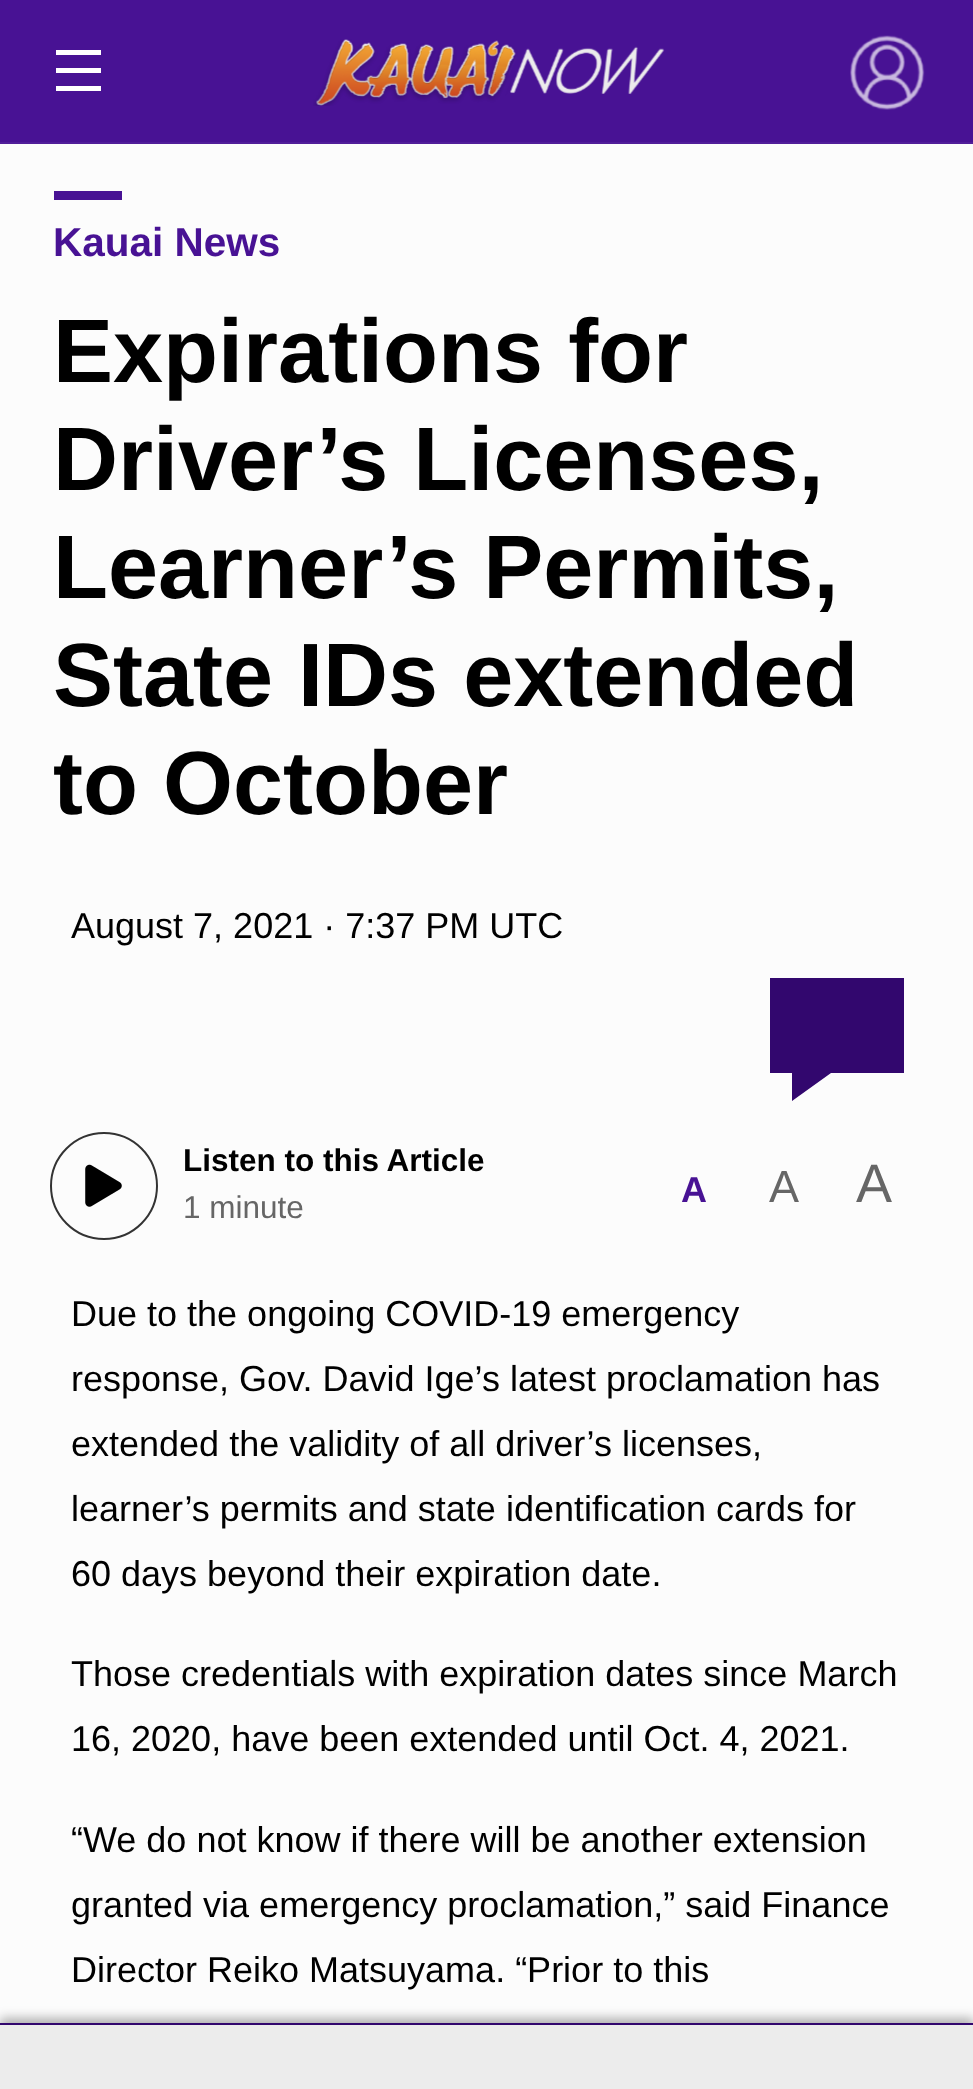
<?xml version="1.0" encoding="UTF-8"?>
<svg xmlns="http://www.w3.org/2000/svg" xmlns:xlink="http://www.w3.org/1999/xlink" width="973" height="2089">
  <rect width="100%" height="100%" fill="#fcfcfc" />
  <rect width="973" height="142" fill="#481294" />
  <rect y="142" width="973" height="2" fill="#511e99" />
  <rect x="56" y="50" width="45" height="5" fill="#ffffff" />
  <rect x="56" y="68" width="45" height="5" fill="#ffffff" />
  <rect x="56" y="86" width="45" height="5" fill="#ffffff" />
  <image x="313" y="39" width="352" height="67" xlink:href="image1.png" />
  <image x="850" y="35" width="75" height="75" xlink:href="image2.png" />
  <rect x="54" y="191" width="68" height="9" fill="#481294" />
  <path d="M 904 978 h -134 v 95 h 22 v 28 l 39 -28 h 73 z" fill="#32076e" />
  <circle cx="104" cy="1186" r="53" fill="none" stroke="#333333" stroke-width="2" />
  <image x="85" y="1164" width="37" height="43" xlink:href="image3.png" />
  <rect y="2018" width="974" height="68" fill="#000000" fill-opacity="0.3" filter="blur(5.5px)" />
  <rect y="2025" width="973" height="64" fill="#ececec" />
  <rect y="2023" width="973" height="2" fill="#32076e" />
  <text x="53" y="256" style="font-family: Liberation Sans; font-size: 40.5px; font-weight: bold; fill: #481294">Kauai News</text>
  <text x="53" y="382" style="font-family: Liberation Sans; font-size: 90px; font-weight: bold; fill: #000000">Expirations for</text>
  <text x="53" y="490" style="font-family: Liberation Sans; font-size: 90px; font-weight: bold; fill: #000000">Driver’s Licenses,</text>
  <text x="53" y="598" style="font-family: Liberation Sans; font-size: 90px; font-weight: bold; fill: #000000">Learner’s Permits,</text>
  <text x="53" y="706" style="font-family: Liberation Sans; font-size: 90px; font-weight: bold; fill: #000000">State IDs extended</text>
  <text x="53" y="814" style="font-family: Liberation Sans; font-size: 90px; font-weight: bold; fill: #000000">to October</text>
  <text x="71" y="938" style="font-family: Liberation Sans; font-size: 36px; fill: #000000">August 7, 2021 · 7:37 PM UTC</text>
  <text x="183" y="1171" style="font-family: Liberation Sans; font-size: 31.5px; font-weight: bold; fill: #000000">Listen to this Article</text>
  <text x="183" y="1218" style="font-family: Liberation Sans; font-size: 31.5px; fill: #666666">1 minute</text>
  <text x="681" y="1202" style="font-family: Liberation Sans; font-size: 36px; font-weight: bold; fill: #481294">A</text>
  <text x="769" y="1202" style="font-family: Liberation Sans; font-size: 45px; fill: #666666">A</text>
  <text x="856" y="1202" style="font-family: Liberation Sans; font-size: 54px; fill: #666666">A</text>
  <text x="71" y="1326" style="font-family: Liberation Sans; font-size: 36px; fill: #000000">Due to the ongoing COVID-19 emergency</text>
  <text x="71" y="1391" style="font-family: Liberation Sans; font-size: 36px; fill: #000000">response, Gov. David Ige’s latest proclamation has</text>
  <text x="71" y="1456" style="font-family: Liberation Sans; font-size: 36px; fill: #000000">extended the validity of all driver’s licenses,</text>
  <text x="71" y="1521" style="font-family: Liberation Sans; font-size: 36px; fill: #000000">learner’s permits and state identification cards for</text>
  <text x="71" y="1586" style="font-family: Liberation Sans; font-size: 36px; fill: #000000">60 days beyond their expiration date.</text>
  <text x="71" y="1686" style="font-family: Liberation Sans; font-size: 36px; fill: #000000">Those credentials with expiration dates since March</text>
  <text x="71" y="1751" style="font-family: Liberation Sans; font-size: 36px; fill: #000000">16, 2020, have been extended until Oct. 4, 2021.</text>
  <text x="71" y="1852" style="font-family: Liberation Sans; font-size: 36px; fill: #000000">“We do not know if there will be another extension</text>
  <text x="71" y="1917" style="font-family: Liberation Sans; font-size: 36px; fill: #000000">granted via emergency proclamation,” said Finance</text>
  <text x="71" y="1982" style="font-family: Liberation Sans; font-size: 36px; fill: #000000">Director Reiko Matsuyama. “Prior to this</text>
</svg>
